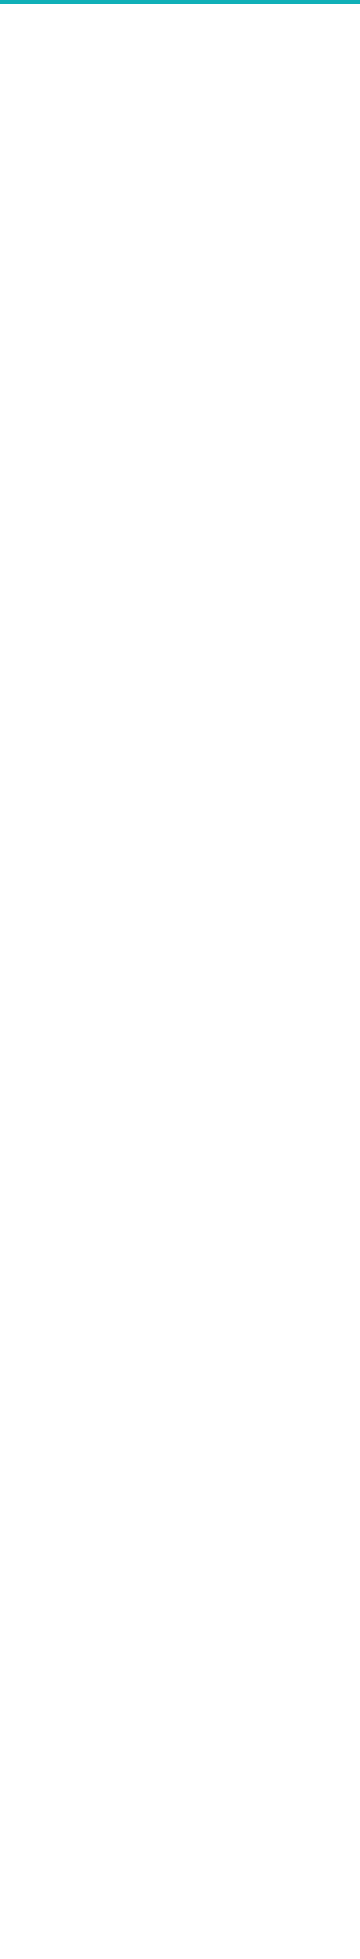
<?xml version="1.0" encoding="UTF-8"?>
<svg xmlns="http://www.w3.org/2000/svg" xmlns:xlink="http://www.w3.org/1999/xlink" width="360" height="1959">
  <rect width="100%" height="100%" fill="#ffffff" />
  <rect width="360" height="4" fill="#10b0b8" />
</svg>
